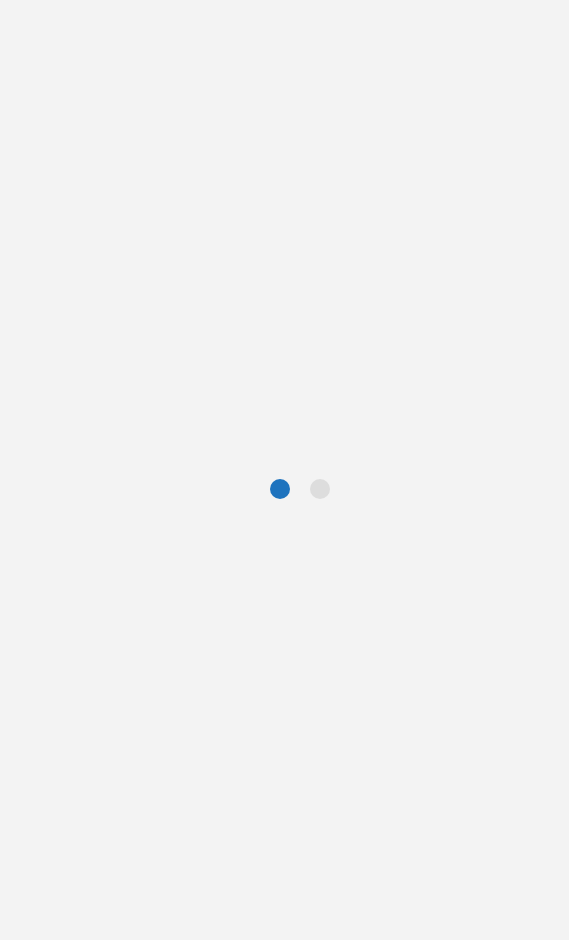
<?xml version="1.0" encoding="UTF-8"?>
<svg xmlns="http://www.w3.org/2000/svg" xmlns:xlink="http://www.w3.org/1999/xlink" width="569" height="940">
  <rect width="100%" height="100%" fill="#f3f3f3" />
  <circle cx="280" cy="489" r="10" fill="#1e73be" />
  <circle cx="320" cy="489" r="10" fill="#dddddd" />
</svg>
